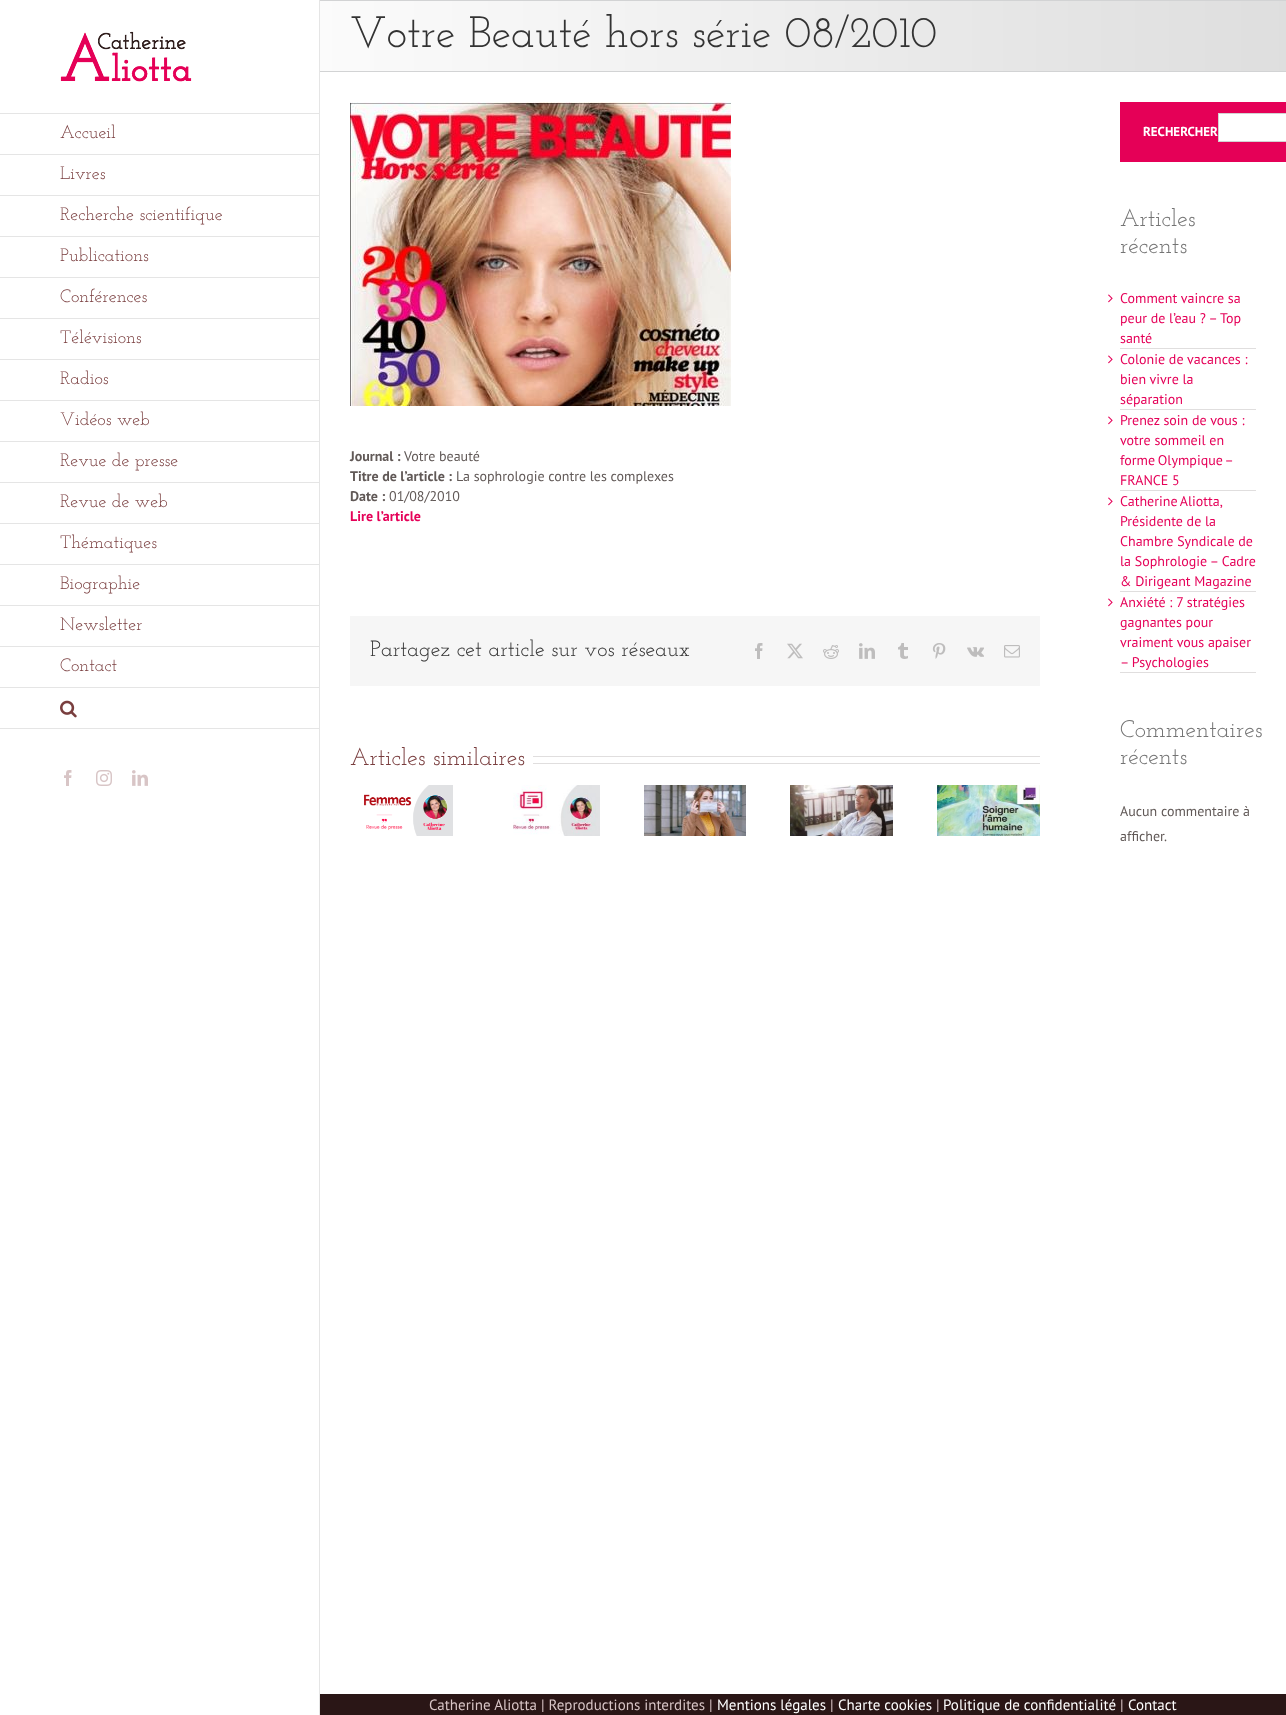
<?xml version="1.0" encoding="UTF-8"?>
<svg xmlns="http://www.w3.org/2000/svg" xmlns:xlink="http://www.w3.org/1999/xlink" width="1286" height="1715">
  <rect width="100%" height="100%" fill="#ffffff" />
  <image x="320" y="1" width="966" height="70" xlink:href="image1.png" />
  <rect x="320" width="966" height="1" fill="#d2d3d4" />
  <rect x="320" y="71" width="966" height="1" fill="#d2d3d4" />
  <image x="60" y="31" width="132" height="51" xlink:href="image2.png" />
  <rect x="319" width="1" height="1715" fill="#e5e5e5" />
  <rect y="113" width="320" height="1" fill="#e5e5e5" />
  <rect y="154" width="320" height="1" fill="#e5e5e5" />
  <rect y="195" width="320" height="1" fill="#e5e5e5" />
  <rect y="236" width="320" height="1" fill="#e5e5e5" />
  <rect y="277" width="320" height="1" fill="#e5e5e5" />
  <rect y="318" width="320" height="1" fill="#e5e5e5" />
  <rect y="359" width="320" height="1" fill="#e5e5e5" />
  <rect y="400" width="320" height="1" fill="#e5e5e5" />
  <rect y="441" width="320" height="1" fill="#e5e5e5" />
  <rect y="482" width="320" height="1" fill="#e5e5e5" />
  <rect y="523" width="320" height="1" fill="#e5e5e5" />
  <rect y="564" width="320" height="1" fill="#e5e5e5" />
  <rect y="605" width="320" height="1" fill="#e5e5e5" />
  <rect y="646" width="320" height="1" fill="#e5e5e5" />
  <rect y="687" width="320" height="1" fill="#e5e5e5" />
  <rect y="728" width="320" height="1" fill="#e5e5e5" />
  <image x="60" y="700" width="17" height="18" xlink:href="image3.png" />
  <image x="64" y="770" width="8" height="16" xlink:href="image4.png" />
  <image x="96" y="770" width="16" height="16" xlink:href="image5.png" />
  <image x="132" y="770" width="16" height="16" xlink:href="image6.png" />
  <image x="350" y="102" width="381" height="304" xlink:href="image7.png" />
  <rect x="350" y="616" width="690" height="70" fill="#f6f6f6" />
  <image x="755" y="643" width="8" height="16" xlink:href="image8.png" />
  <image x="787" y="643" width="16" height="16" xlink:href="image9.png" />
  <image x="823" y="645" width="16" height="14" xlink:href="image10.png" />
  <image x="859" y="643" width="16" height="16" xlink:href="image11.png" />
  <image x="898" y="643" width="10" height="16" xlink:href="image12.png" />
  <image x="932" y="643" width="14" height="16" xlink:href="image13.png" />
  <image x="967" y="647" width="17" height="10" xlink:href="image14.png" />
  <image x="1004" y="645" width="16" height="13" xlink:href="image15.png" />
  <rect x="533" y="756" width="507" height="1" fill="#e0dede" />
  <rect x="533" y="763" width="507" height="1" fill="#e0dede" />
  <image x="364" y="785" width="89" height="51" xlink:href="image16.png" />
  <image x="513" y="785" width="87" height="51" xlink:href="image17.png" />
  <image x="644" y="785" width="102" height="51" xlink:href="image18.png" />
  <image x="790" y="785" width="103" height="51" xlink:href="image19.png" />
  <image x="937" y="785" width="103" height="51" xlink:href="image20.png" />
  <rect x="1120" y="102" width="166" height="60" fill="#e50057" />
  <rect x="1218.5" y="113.5" width="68" height="28" fill="#ffffff" stroke="#d2d2d2" />
  <rect x="1120" y="348" width="136" height="1" fill="#e0dede" />
  <image x="1108" y="294" width="5" height="9" xlink:href="image21.png" />
  <rect x="1120" y="409" width="136" height="1" fill="#e0dede" />
  <image x="1108" y="355" width="5" height="9" xlink:href="image21.png" />
  <rect x="1120" y="490" width="136" height="1" fill="#e0dede" />
  <image x="1108" y="416" width="5" height="9" xlink:href="image21.png" />
  <rect x="1120" y="591" width="136" height="1" fill="#e0dede" />
  <image x="1108" y="497" width="5" height="9" xlink:href="image21.png" />
  <rect x="1120" y="672" width="136" height="1" fill="#e0dede" />
  <image x="1108" y="598" width="5" height="9" xlink:href="image21.png" />
  <rect x="320" y="1694" width="966" height="21" fill="#2a1616" />
  <text x="350" y="47" style="font-family: Josefin Slab; font-size: 44px; font-weight: 100; fill: #333333">Votre Beauté hors série 08/2010</text>
  <text x="60" y="138" style="font-family: Josefin Slab; font-size: 18px; font-weight: 100; fill: #793d3e">Accueil</text>
  <text x="60" y="179" style="font-family: Josefin Slab; font-size: 18px; font-weight: 100; fill: #793d3e">Livres</text>
  <text x="60" y="220" style="font-family: Josefin Slab; font-size: 18px; font-weight: 100; fill: #793d3e">Recherche scientifique</text>
  <text x="60" y="261" style="font-family: Josefin Slab; font-size: 18px; font-weight: 100; fill: #793d3e">Publications</text>
  <text x="60" y="302" style="font-family: Josefin Slab; font-size: 18px; font-weight: 100; fill: #793d3e">Conférences</text>
  <text x="60" y="343" style="font-family: Josefin Slab; font-size: 18px; font-weight: 100; fill: #793d3e">Télévisions</text>
  <text x="60" y="384" style="font-family: Josefin Slab; font-size: 18px; font-weight: 100; fill: #793d3e">Radios</text>
  <text x="60" y="425" style="font-family: Josefin Slab; font-size: 18px; font-weight: 100; fill: #793d3e">Vidéos web</text>
  <text x="60" y="466" style="font-family: Josefin Slab; font-size: 18px; font-weight: 100; fill: #793d3e">Revue de presse</text>
  <text x="60" y="507" style="font-family: Josefin Slab; font-size: 18px; font-weight: 100; fill: #793d3e">Revue de web</text>
  <text x="60" y="548" style="font-family: Josefin Slab; font-size: 18px; font-weight: 100; fill: #793d3e">Thématiques</text>
  <text x="60" y="589" style="font-family: Josefin Slab; font-size: 18px; font-weight: 100; fill: #793d3e">Biographie</text>
  <text x="60" y="630" style="font-family: Josefin Slab; font-size: 18px; font-weight: 100; fill: #793d3e">Newsletter</text>
  <text x="60" y="671" style="font-family: Josefin Slab; font-size: 18px; font-weight: 100; fill: #793d3e">Contact</text>
  <text x="350" y="461" style="font-family: PT Sans; font-size: 14px; font-weight: bold; fill: #615957">Journal :</text>
  <text x="404" y="461" style="font-family: PT Sans; font-size: 14px; fill: #615957">Votre beauté</text>
  <text x="350" y="481" style="font-family: PT Sans; font-size: 14px; font-weight: bold; fill: #615957">Titre de l’article :</text>
  <text x="456" y="481" style="font-family: PT Sans; font-size: 14px; fill: #615957">La sophrologie contre les complexes</text>
  <text x="350" y="501" style="font-family: PT Sans; font-size: 14px; font-weight: bold; fill: #615957">Date :</text>
  <text x="389" y="501" style="font-family: PT Sans; font-size: 14px; fill: #615957">01/08/2010</text>
  <text x="350" y="521" style="font-family: PT Sans; font-size: 14px; font-weight: bold; fill: #e50158">Lire l’article</text>
  <text x="370" y="656" style="font-family: Josefin Slab; font-size: 22px; font-weight: 100; fill: #333333">Partagez cet article sur vos réseaux</text>
  <text x="350" y="765" style="font-family: Josefin Slab; font-size: 24px; font-weight: 100; fill: #793d3e">Articles similaires</text>
  <text x="1143" y="136" style="font-family: PT Sans; font-size: 13px; font-weight: bold; fill: #ffffff">RECHERCHER</text>
  <text x="1120" y="226" style="font-family: Josefin Slab; font-size: 24px; font-weight: 100; fill: #747474">Articles</text>
  <text x="1120" y="253" style="font-family: Josefin Slab; font-size: 24px; font-weight: 100; fill: #747474">récents</text>
  <text x="1120" y="303" style="font-family: PT Sans; font-size: 14px; fill: #e50158">Comment vaincre sa</text>
  <text x="1120" y="323" style="font-family: PT Sans; font-size: 14px; fill: #e50158">peur de l’eau ? – Top</text>
  <text x="1120" y="343" style="font-family: PT Sans; font-size: 14px; fill: #e50158">santé</text>
  <text x="1120" y="364" style="font-family: PT Sans; font-size: 14px; fill: #e50158">Colonie de vacances :</text>
  <text x="1120" y="384" style="font-family: PT Sans; font-size: 14px; fill: #e50158">bien vivre la</text>
  <text x="1120" y="404" style="font-family: PT Sans; font-size: 14px; fill: #e50158">séparation</text>
  <text x="1120" y="425" style="font-family: PT Sans; font-size: 14px; fill: #e50158">Prenez soin de vous :</text>
  <text x="1120" y="445" style="font-family: PT Sans; font-size: 14px; fill: #e50158">votre sommeil en</text>
  <text x="1120" y="465" word-spacing="-1" style="font-family: PT Sans; font-size: 14px; fill: #e50158">forme Olympique –</text>
  <text x="1120" y="485" style="font-family: PT Sans; font-size: 14px; fill: #e50158">FRANCE 5</text>
  <text x="1120" y="506" word-spacing="-1" style="font-family: PT Sans; font-size: 14px; fill: #e50158">Catherine Aliotta,</text>
  <text x="1120" y="526" style="font-family: PT Sans; font-size: 14px; fill: #e50158">Présidente de la</text>
  <text x="1120" y="546" style="font-family: PT Sans; font-size: 14px; fill: #e50158">Chambre Syndicale de</text>
  <text x="1120" y="566" style="font-family: PT Sans; font-size: 14px; fill: #e50158">la Sophrologie – Cadre</text>
  <text x="1120" y="586" style="font-family: PT Sans; font-size: 14px; fill: #e50158">&amp; Dirigeant Magazine</text>
  <text x="1120" y="607" style="font-family: PT Sans; font-size: 14px; fill: #e50158">Anxiété : 7 stratégies</text>
  <text x="1120" y="627" style="font-family: PT Sans; font-size: 14px; fill: #e50158">gagnantes pour</text>
  <text x="1120" y="647" style="font-family: PT Sans; font-size: 14px; fill: #e50158">vraiment vous apaiser</text>
  <text x="1120" y="667" style="font-family: PT Sans; font-size: 14px; fill: #e50158">– Psychologies</text>
  <text x="1120" y="737" style="font-family: Josefin Slab; font-size: 24px; font-weight: 100; fill: #747474">Commentaires</text>
  <text x="1120" y="764" style="font-family: Josefin Slab; font-size: 24px; font-weight: 100; fill: #747474">récents</text>
  <text x="1120" y="816" style="font-family: PT Sans; font-size: 14px; fill: #615957">Aucun commentaire à</text>
  <text x="1120" y="841" style="font-family: PT Sans; font-size: 14px; fill: #615957">afficher.</text>
  <text x="429" y="1710" style="font-family: PT Sans; font-size: 15px; fill: #d8c5c6">Catherine Aliotta | Reproductions interdites |</text>
  <text x="717" y="1710" style="font-family: PT Sans; font-size: 15px; fill: #ffffff">Mentions légales</text>
  <text x="830" y="1710" style="font-family: PT Sans; font-size: 15px; fill: #d8c5c6">|</text>
  <text x="838" y="1710" style="font-family: PT Sans; font-size: 15px; fill: #ffffff">Charte cookies</text>
  <text x="936" y="1710" style="font-family: PT Sans; font-size: 15px; fill: #d8c5c6">|</text>
  <text x="943" y="1710" style="font-family: PT Sans; font-size: 15px; fill: #ffffff">Politique de confidentialité</text>
  <text x="1120" y="1710" style="font-family: PT Sans; font-size: 15px; fill: #d8c5c6">|</text>
  <text x="1128" y="1710" style="font-family: PT Sans; font-size: 15px; fill: #ffffff">Contact</text>
</svg>
